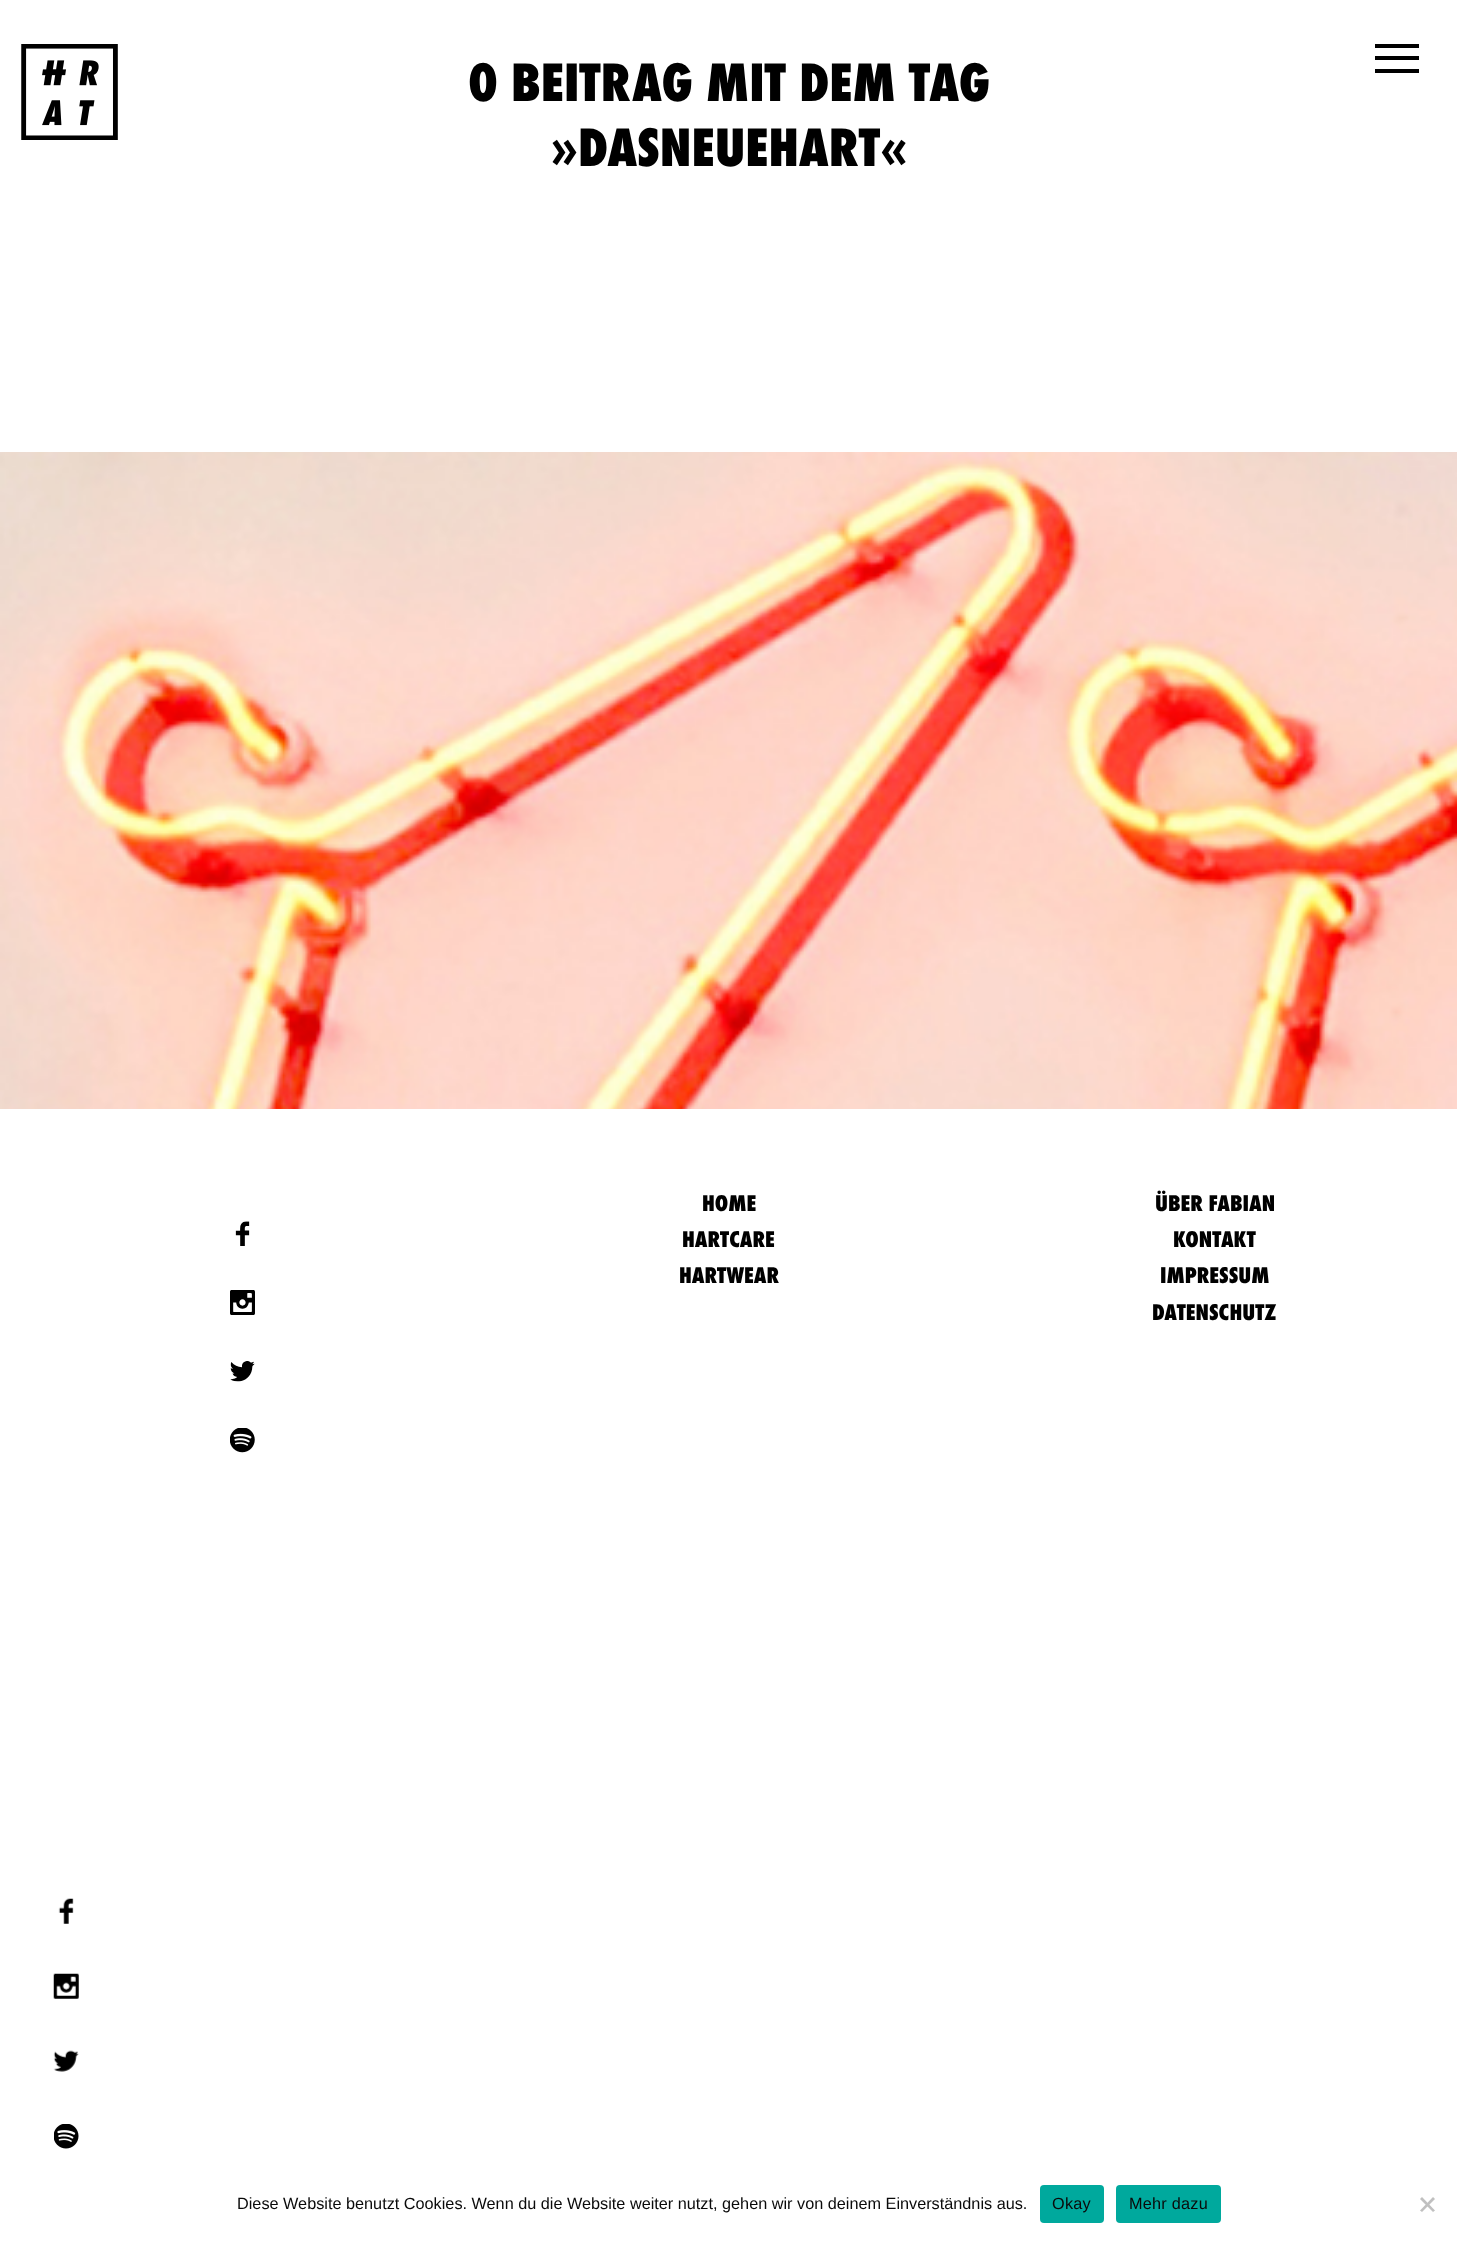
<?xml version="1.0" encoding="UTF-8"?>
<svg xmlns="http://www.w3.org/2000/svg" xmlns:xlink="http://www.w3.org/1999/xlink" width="1457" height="2242">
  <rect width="100%" height="100%" fill="#ffffff" />
  <image x="21" y="44" width="97" height="96" xlink:href="image1.png" />
  <rect x="1375" y="44" width="44" height="4" fill="#000000" />
  <rect x="1375" y="56" width="44" height="4" fill="#000000" />
  <rect x="1375" y="69" width="44" height="4" fill="#000000" />
  <image x="0" y="452" width="1457" height="657" xlink:href="image2.png" />
  <image x="235" y="1221" width="15" height="25" xlink:href="image3.png" />
  <image x="230" y="1290" width="25" height="25" xlink:href="image4.png" />
  <image x="230" y="1361" width="25" height="21" xlink:href="image5.png" />
  <image x="230" y="1428" width="25" height="25" xlink:href="image6.png" />
  <image x="58" y="1898" width="16" height="26" xlink:href="image7.png" />
  <image x="53" y="1973" width="26" height="26" xlink:href="image8.png" />
  <image x="53" y="2050" width="26" height="22" xlink:href="image9.png" />
  <image x="54" y="2124" width="25" height="25" xlink:href="image10.png" />
  <rect x="1040" y="2185" width="64" height="38" rx="4" fill="#00a99d" />
  <rect x="1116" y="2185" width="105" height="38" rx="4" fill="#00a99d" />
  <path d="M 1433 2197 l 2 2 l -13 13 l -2 -1.5 z" fill="#c0c0c0" />
  <path d="M 1420 2199 l 2 -2 l 13 13.5 l -2 1.5 z" fill="#c0c0c0" />
  <text x="468" y="101" style="font-family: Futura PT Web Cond; font-size: 56.25px; font-weight: 800; fill: #000000">0 BEITRAG MIT DEM TAG</text>
  <text x="551" y="166" style="font-family: Futura PT Web Cond; font-size: 56.25px; font-weight: 800; fill: #000000">»DASNEUEHART«</text>
  <text x="702" y="1211" style="font-family: Futura PT Web Cond; font-size: 23.75px; font-weight: 800; fill: #000000">HOME</text>
  <text x="682" y="1247" style="font-family: Futura PT Web Cond; font-size: 23.75px; font-weight: 800; fill: #000000">HARTCARE</text>
  <text x="679" y="1283" style="font-family: Futura PT Web Cond; font-size: 23.75px; font-weight: 800; fill: #000000">HARTWEAR</text>
  <text x="1155" y="1211" style="font-family: Futura PT Web Cond; font-size: 23.75px; font-weight: 800; fill: #000000">ÜBER FABIAN</text>
  <text x="1173" y="1247" style="font-family: Futura PT Web Cond; font-size: 23.75px; font-weight: 800; fill: #000000">KONTAKT</text>
  <text x="1160" y="1283" style="font-family: Futura PT Web Cond; font-size: 23.75px; font-weight: 800; fill: #000000">IMPRESSUM</text>
  <text x="1152" y="1320" style="font-family: Futura PT Web Cond; font-size: 23.75px; font-weight: 800; fill: #000000">DATENSCHUTZ</text>
  <text x="237" y="2209" style="font-family: Liberation Sans; font-size: 16.25px; fill: #0a0a0a">Diese Website benutzt Cookies. Wenn du die Website weiter nutzt, gehen wir von deinem Einverständnis aus.</text>
  <text x="1052" y="2209" style="font-family: Liberation Sans; font-size: 16.25px; letter-spacing: 0.25px; fill: #0a0a0a">Okay</text>
  <text x="1129" y="2209" style="font-family: Liberation Sans; font-size: 16.25px; letter-spacing: 0.25px; fill: #0a0a0a">Mehr dazu</text>
</svg>
